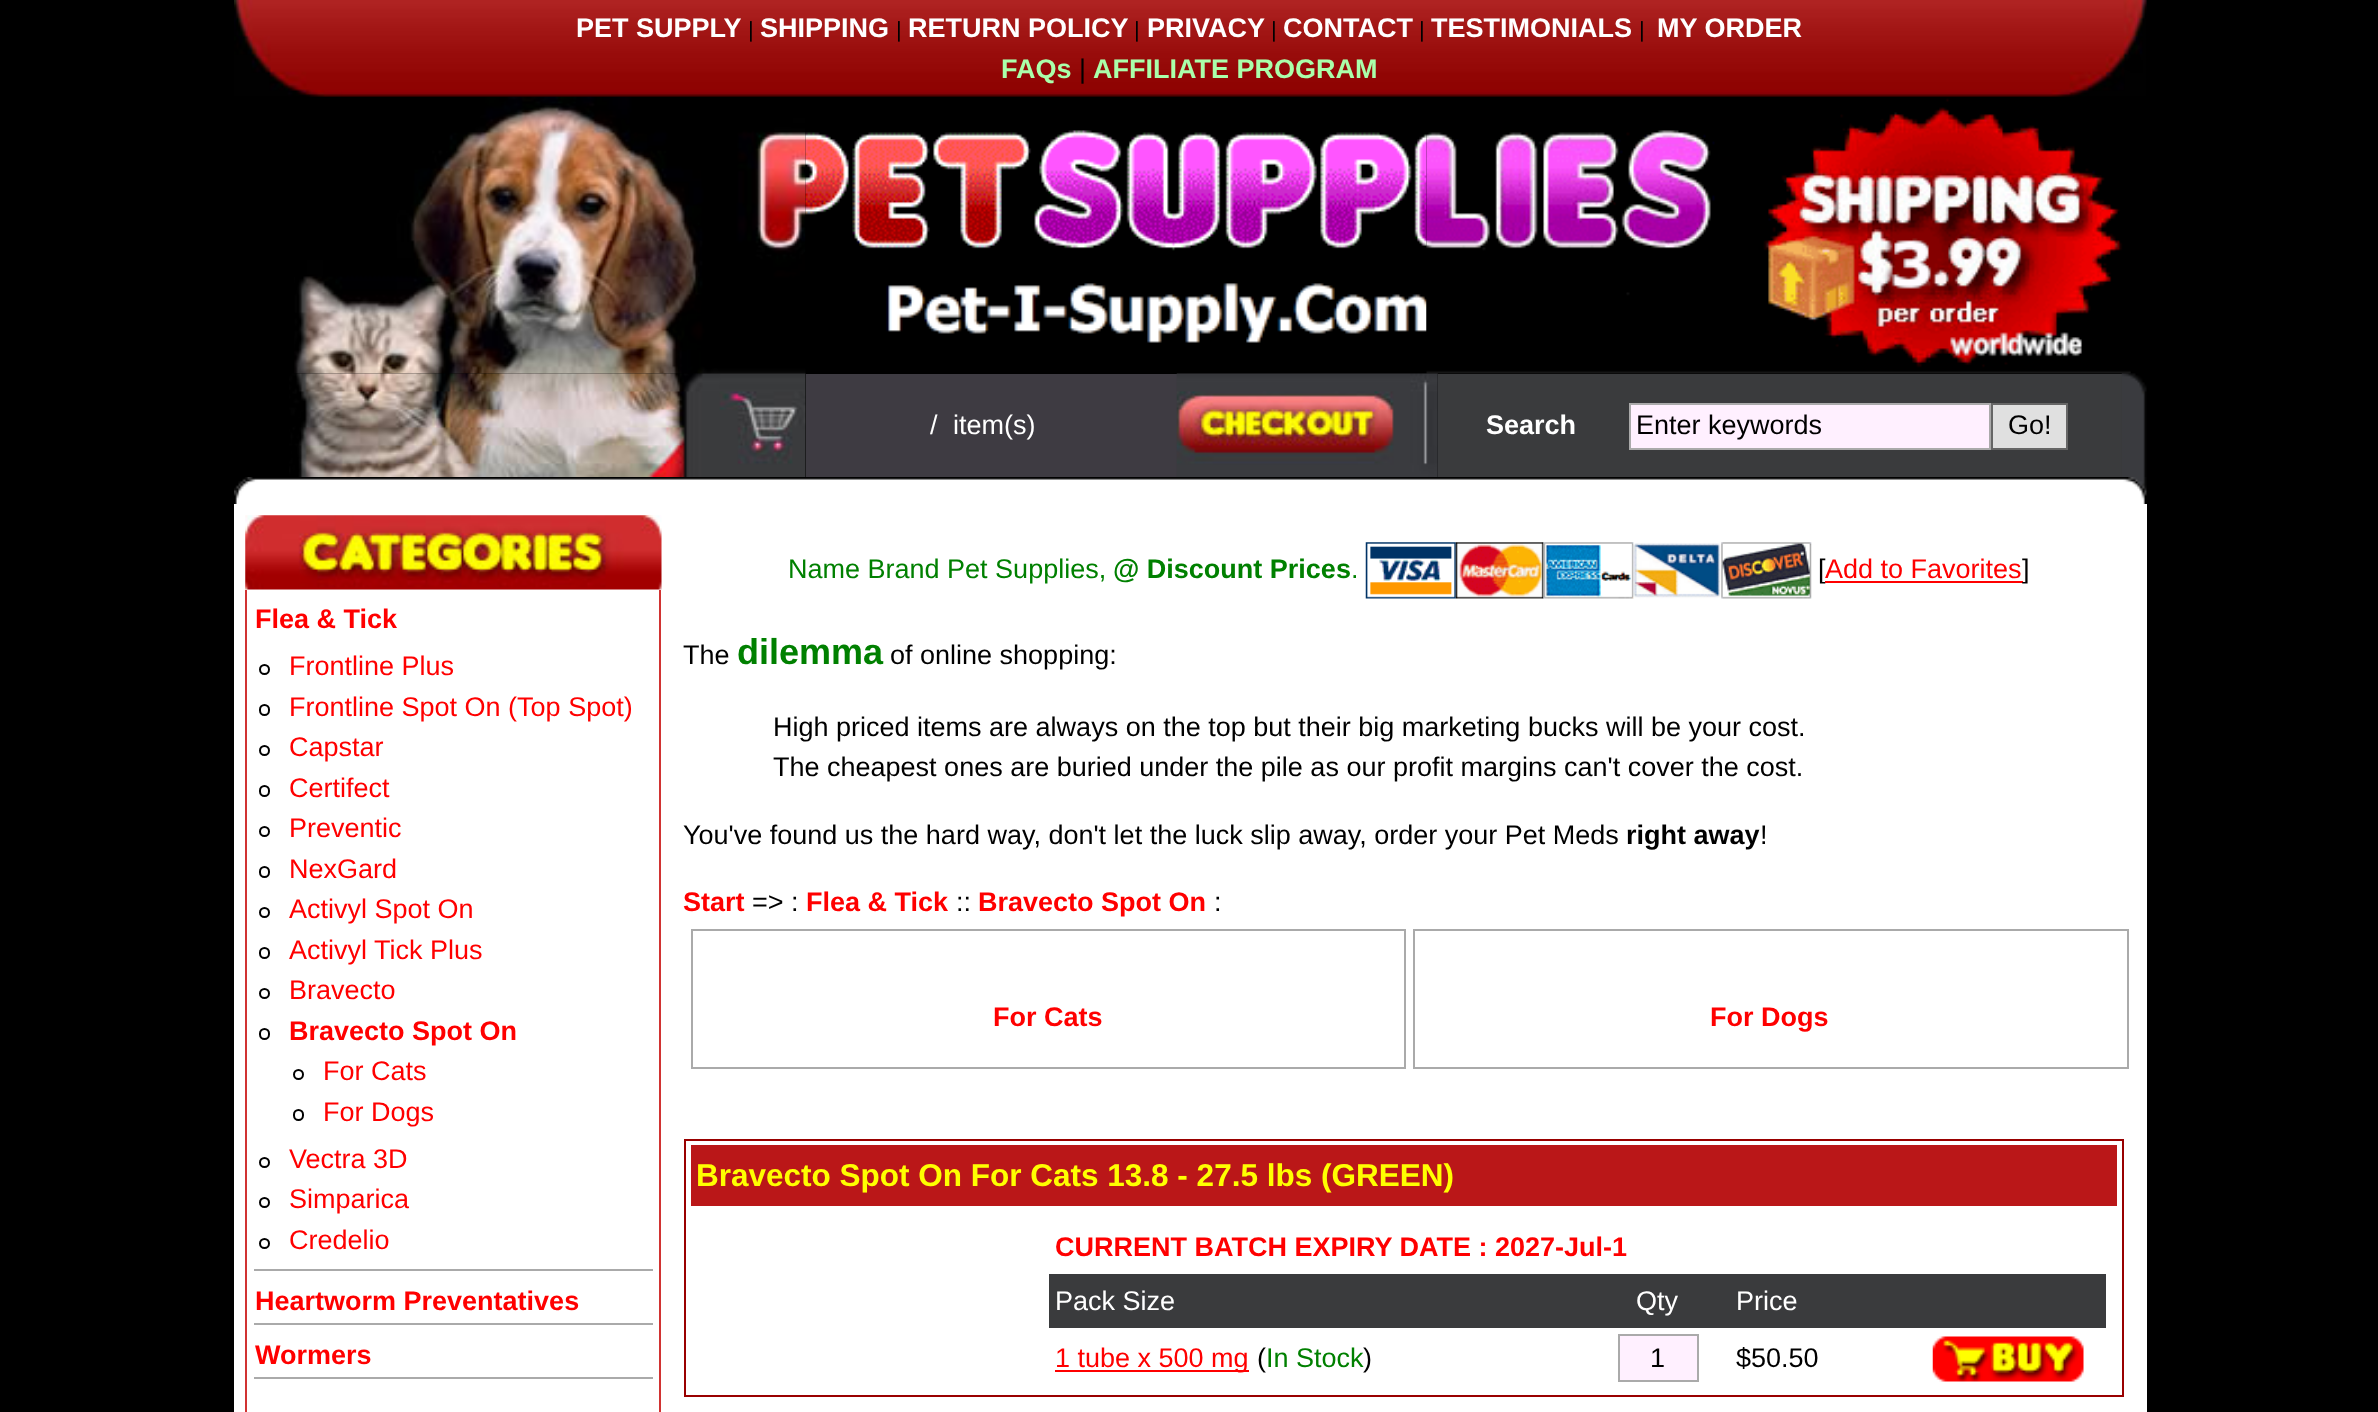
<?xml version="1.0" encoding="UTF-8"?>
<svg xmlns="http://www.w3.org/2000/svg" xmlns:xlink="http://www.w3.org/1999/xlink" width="2378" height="1412">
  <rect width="100%" height="100%" fill="#000000" />
  <image x="234" y="0" width="1913" height="97" xlink:href="image1.png" />
  <image x="294" y="96" width="512" height="278" xlink:href="image2.png" />
  <image x="805" y="96" width="622" height="247" xlink:href="image3.png" />
  <image x="1426" y="96" width="705" height="278" xlink:href="image4.png" />
  <image x="289" y="373" width="517" height="104" xlink:href="image5.png" />
  <rect x="806" y="374" width="371" height="103" fill="#3e3b42" />
  <image x="1176" y="373" width="262" height="104" xlink:href="image6.png" />
  <rect x="1438" y="374" width="684" height="103" fill="#3a3b3d" />
  <rect x="1630" y="404" width="360" height="45" fill="#fff0ff" stroke="#aaaaaa" stroke-width="2" />
  <rect x="1992" y="404" width="75" height="45" fill="#e0e0e0" stroke="#666666" stroke-width="2" />
  <image x="2121" y="373" width="26" height="104" xlink:href="image7.png" />
  <image x="234" y="477" width="1913" height="27" xlink:href="image8.png" />
  <rect x="234" y="504" width="1913" height="908" fill="#ffffff" />
  <image x="245" y="515" width="417" height="75" xlink:href="image9.png" />
  <rect x="659" y="590" width="2" height="822" fill="#d13332" />
  <rect x="245" y="590" width="2" height="822" fill="#d13332" />
  <rect x="254" y="1269" width="399" height="2" fill="#aaaaaa" />
  <circle cx="264.5" cy="669.5" r="4.5" fill="none" stroke="#000000" stroke-width="2" />
  <rect x="260" y="705" width="9" height="10" rx="4.5" fill="none" stroke="#000000" stroke-width="2" />
  <circle cx="264.5" cy="750.5" r="4.5" fill="none" stroke="#000000" stroke-width="2" />
  <rect x="260" y="786" width="9" height="10" rx="4.5" fill="none" stroke="#000000" stroke-width="2" />
  <circle cx="264.5" cy="831.5" r="4.5" fill="none" stroke="#000000" stroke-width="2" />
  <rect x="260" y="867" width="9" height="10" rx="4.5" fill="none" stroke="#000000" stroke-width="2" />
  <circle cx="264.5" cy="912.5" r="4.5" fill="none" stroke="#000000" stroke-width="2" />
  <rect x="260" y="948" width="9" height="10" rx="4.5" fill="none" stroke="#000000" stroke-width="2" />
  <circle cx="264.5" cy="993.5" r="4.5" fill="none" stroke="#000000" stroke-width="2" />
  <rect x="260" y="1029" width="9" height="10" rx="4.5" fill="none" stroke="#000000" stroke-width="2" />
  <circle cx="298.5" cy="1074.5" r="4.5" fill="none" stroke="#000000" stroke-width="2" />
  <rect x="294" y="1110" width="9" height="10" rx="4.5" fill="none" stroke="#000000" stroke-width="2" />
  <circle cx="264.5" cy="1162.5" r="4.5" fill="none" stroke="#000000" stroke-width="2" />
  <circle cx="264.5" cy="1202.5" r="4.5" fill="none" stroke="#000000" stroke-width="2" />
  <circle cx="264.5" cy="1243.5" r="4.5" fill="none" stroke="#000000" stroke-width="2" />
  <rect x="254" y="1323" width="399" height="2" fill="#aaaaaa" />
  <rect x="254" y="1377" width="399" height="2" fill="#aaaaaa" />
  <image x="1365" y="542" width="91" height="57" xlink:href="image10.png" />
  <image x="1455" y="542" width="89" height="57" xlink:href="image11.png" />
  <image x="1543" y="542" width="91" height="57" xlink:href="image12.png" />
  <image x="1633" y="542" width="88" height="57" xlink:href="image13.png" />
  <image x="1721" y="542" width="91" height="57" xlink:href="image14.png" />
  <rect x="692" y="930" width="713" height="138" fill="none" stroke="#aaaaaa" stroke-width="2" />
  <rect x="1414" y="930" width="714" height="138" fill="none" stroke="#aaaaaa" stroke-width="2" />
  <rect x="685" y="1140" width="1438" height="256" fill="none" stroke="#990000" stroke-width="2" />
  <rect x="691" y="1145" width="1426" height="61" fill="#ba1718" />
  <rect x="1049" y="1274" width="1057" height="54" fill="#3a3b3d" />
  <rect x="1055" y="1370" width="194" height="2" fill="#ff0000" />
  <rect x="1619" y="1335" width="79" height="46" fill="#fff0ff" stroke="#aaaaaa" stroke-width="2" />
  <image x="1932" y="1336" width="152" height="46" xlink:href="image15.png" />
  <text x="576" y="37" style="font-family: Liberation Sans; font-size: 27px; font-weight: bold; fill: #ffffff">PET SUPPLY</text>
  <text x="748" y="37" style="font-family: Liberation Sans; font-size: 22px; fill: #000000">|</text>
  <text x="760" y="37" style="font-family: Liberation Sans; font-size: 27px; font-weight: bold; fill: #ffffff">SHIPPING</text>
  <text x="896" y="37" style="font-family: Liberation Sans; font-size: 22px; fill: #000000">|</text>
  <text x="908" y="37" style="font-family: Liberation Sans; font-size: 27px; font-weight: bold; fill: #ffffff">RETURN POLICY</text>
  <text x="1134" y="37" style="font-family: Liberation Sans; font-size: 22px; fill: #000000">|</text>
  <text x="1147" y="37" style="font-family: Liberation Sans; font-size: 27px; font-weight: bold; fill: #ffffff">PRIVACY</text>
  <text x="1271" y="37" style="font-family: Liberation Sans; font-size: 22px; fill: #000000">|</text>
  <text x="1283" y="37" style="font-family: Liberation Sans; font-size: 27px; font-weight: bold; fill: #ffffff">CONTACT</text>
  <text x="1419" y="37" style="font-family: Liberation Sans; font-size: 22px; fill: #000000">|</text>
  <text x="1431" y="37" style="font-family: Liberation Sans; font-size: 27px; font-weight: bold; fill: #ffffff">TESTIMONIALS</text>
  <text x="1639" y="37" style="font-family: Liberation Sans; font-size: 22px; fill: #000000">|</text>
  <text x="1657" y="37" style="font-family: Liberation Sans; font-size: 27px; font-weight: bold; fill: #ffffff">MY ORDER</text>
  <text x="1001" y="78" style="font-family: Liberation Sans; font-size: 27px; font-weight: bold; fill: #aaffaa">FAQs</text>
  <text x="1079" y="78" style="font-family: Liberation Sans; font-size: 27px; fill: #000000">|</text>
  <text x="1093" y="78" style="font-family: Liberation Sans; font-size: 27px; font-weight: bold; fill: #aaffaa">AFFILIATE PROGRAM</text>
  <text x="930" y="434" style="font-family: Liberation Sans; font-size: 27px; fill: #ffffff">/</text>
  <text x="953" y="434" style="font-family: Liberation Sans; font-size: 27px; fill: #ffffff">item(s)</text>
  <text x="1486" y="434" style="font-family: Liberation Sans; font-size: 27px; font-weight: bold; fill: #ffffff">Search</text>
  <text x="1636" y="434" style="font-family: Liberation Sans; font-size: 27px; fill: #000000">Enter keywords</text>
  <text x="2008" y="434" style="font-family: Liberation Sans; font-size: 27px; fill: #000000">Go!</text>
  <text x="255" y="628" style="font-family: Liberation Sans; font-size: 27px; font-weight: bold; fill: #ff0000">Flea &amp; Tick</text>
  <text x="289" y="675" style="font-family: Liberation Sans; font-size: 27px; fill: #ff0000">Frontline Plus</text>
  <text x="289" y="716" style="font-family: Liberation Sans; font-size: 27px; fill: #ff0000">Frontline Spot On (Top Spot)</text>
  <text x="289" y="756" style="font-family: Liberation Sans; font-size: 27px; fill: #ff0000">Capstar</text>
  <text x="289" y="797" style="font-family: Liberation Sans; font-size: 27px; fill: #ff0000">Certifect</text>
  <text x="289" y="837" style="font-family: Liberation Sans; font-size: 27px; fill: #ff0000">Preventic</text>
  <text x="289" y="878" style="font-family: Liberation Sans; font-size: 27px; fill: #ff0000">NexGard</text>
  <text x="289" y="918" style="font-family: Liberation Sans; font-size: 27px; fill: #ff0000">Activyl Spot On</text>
  <text x="289" y="959" style="font-family: Liberation Sans; font-size: 27px; fill: #ff0000">Activyl Tick Plus</text>
  <text x="289" y="999" style="font-family: Liberation Sans; font-size: 27px; fill: #ff0000">Bravecto</text>
  <text x="289" y="1040" style="font-family: Liberation Sans; font-size: 27px; font-weight: bold; fill: #ff0000">Bravecto Spot On</text>
  <text x="323" y="1080" style="font-family: Liberation Sans; font-size: 27px; fill: #ff0000">For Cats</text>
  <text x="323" y="1121" style="font-family: Liberation Sans; font-size: 27px; fill: #ff0000">For Dogs</text>
  <text x="289" y="1168" style="font-family: Liberation Sans; font-size: 27px; fill: #ff0000">Vectra 3D</text>
  <text x="289" y="1208" style="font-family: Liberation Sans; font-size: 27px; fill: #ff0000">Simparica</text>
  <text x="289" y="1249" style="font-family: Liberation Sans; font-size: 27px; fill: #ff0000">Credelio</text>
  <text x="255" y="1310" style="font-family: Liberation Sans; font-size: 27px; font-weight: bold; fill: #ff0000">Heartworm Preventatives</text>
  <text x="255" y="1364" style="font-family: Liberation Sans; font-size: 27px; font-weight: bold; fill: #ff0000">Wormers</text>
  <text x="788" y="578" style="font-family: Liberation Sans; font-size: 27px; fill: #008000">Name Brand Pet Supplies,</text>
  <text x="1113" y="578" style="font-family: Liberation Sans; font-size: 27px; font-weight: bold; fill: #008000">@ Discount Prices</text>
  <text x="1351" y="578" style="font-family: Liberation Sans; font-size: 27px; fill: #008000">.</text>
  <text x="1818" y="578" style="font-family: Liberation Sans; font-size: 27px; fill: #000000">[</text>
  <text x="1825" y="578" style="font-family: Liberation Sans; font-size: 27px; fill: #ff0000">Add to Favorites</text>
  <rect x="1825" y="581" width="198" height="2" fill="#ff0000" />
  <text x="2022" y="578" style="font-family: Liberation Sans; font-size: 27px; fill: #000000">]</text>
  <text x="683" y="664" style="font-family: Liberation Sans; font-size: 27px; fill: #000000">The</text>
  <text x="737" y="664" style="font-family: Liberation Sans; font-size: 36px; font-weight: bold; fill: #008000">dilemma</text>
  <text x="890" y="664" style="font-family: Liberation Sans; font-size: 27px; fill: #000000">of online shopping:</text>
  <text x="773" y="736" style="font-family: Liberation Sans; font-size: 27px; fill: #000000">High priced items are always on the top but their big marketing bucks will be your cost.</text>
  <text x="773" y="776" style="font-family: Liberation Sans; font-size: 27px; fill: #000000">The cheapest ones are buried under the pile as our profit margins can't cover the cost.</text>
  <text x="683" y="844" style="font-family: Liberation Sans; font-size: 27px; fill: #000000">You've found us the hard way, don't let the luck slip away, order your Pet Meds</text>
  <text x="1626" y="844" style="font-family: Liberation Sans; font-size: 27px; font-weight: bold; fill: #000000">right away</text>
  <text x="1760" y="844" style="font-family: Liberation Sans; font-size: 27px; fill: #000000">!</text>
  <text x="683" y="911" style="font-family: Liberation Sans; font-size: 27px; font-weight: bold; fill: #ff0000">Start</text>
  <text x="752" y="911" style="font-family: Liberation Sans; font-size: 27px; fill: #000000">=&gt; :</text>
  <text x="806" y="911" style="font-family: Liberation Sans; font-size: 27px; font-weight: bold; fill: #ff0000">Flea &amp; Tick</text>
  <text x="956" y="911" style="font-family: Liberation Sans; font-size: 27px; fill: #000000">::</text>
  <text x="978" y="911" style="font-family: Liberation Sans; font-size: 27px; font-weight: bold; fill: #ff0000">Bravecto Spot On</text>
  <text x="1214" y="911" style="font-family: Liberation Sans; font-size: 27px; fill: #000000">:</text>
  <text x="993" y="1026" style="font-family: Liberation Sans; font-size: 27px; font-weight: bold; fill: #ff0000">For Cats</text>
  <text x="1710" y="1026" style="font-family: Liberation Sans; font-size: 27px; font-weight: bold; fill: #ff0000">For Dogs</text>
  <text x="696" y="1186" style="font-family: Liberation Sans; font-size: 31.5px; font-weight: bold; fill: #ffff00">Bravecto Spot On For Cats 13.8 - 27.5 lbs (GREEN)</text>
  <text x="1055" y="1256" style="font-family: Liberation Sans; font-size: 27px; font-weight: bold; fill: #ff0000">CURRENT BATCH EXPIRY DATE : 2027-Jul-1</text>
  <text x="1055" y="1310" style="font-family: Liberation Sans; font-size: 27px; fill: #ffffff">Pack Size</text>
  <text x="1636" y="1310" style="font-family: Liberation Sans; font-size: 27px; fill: #ffffff">Qty</text>
  <text x="1736" y="1310" style="font-family: Liberation Sans; font-size: 27px; fill: #ffffff">Price</text>
  <text x="1055" y="1367" style="font-family: Liberation Sans; font-size: 27px; fill: #ff0000">1 tube x 500 mg</text>
  <text x="1257" y="1367" style="font-family: Liberation Sans; font-size: 27px; fill: #000000">(</text>
  <text x="1266" y="1367" style="font-family: Liberation Sans; font-size: 27px; fill: #008000">In Stock</text>
  <text x="1363" y="1367" style="font-family: Liberation Sans; font-size: 27px; fill: #000000">)</text>
  <text x="1650" y="1367" style="font-family: Liberation Sans; font-size: 27px; fill: #000000">1</text>
  <text x="1736" y="1367" style="font-family: Liberation Sans; font-size: 27px; fill: #000000">$50.50</text>
</svg>
